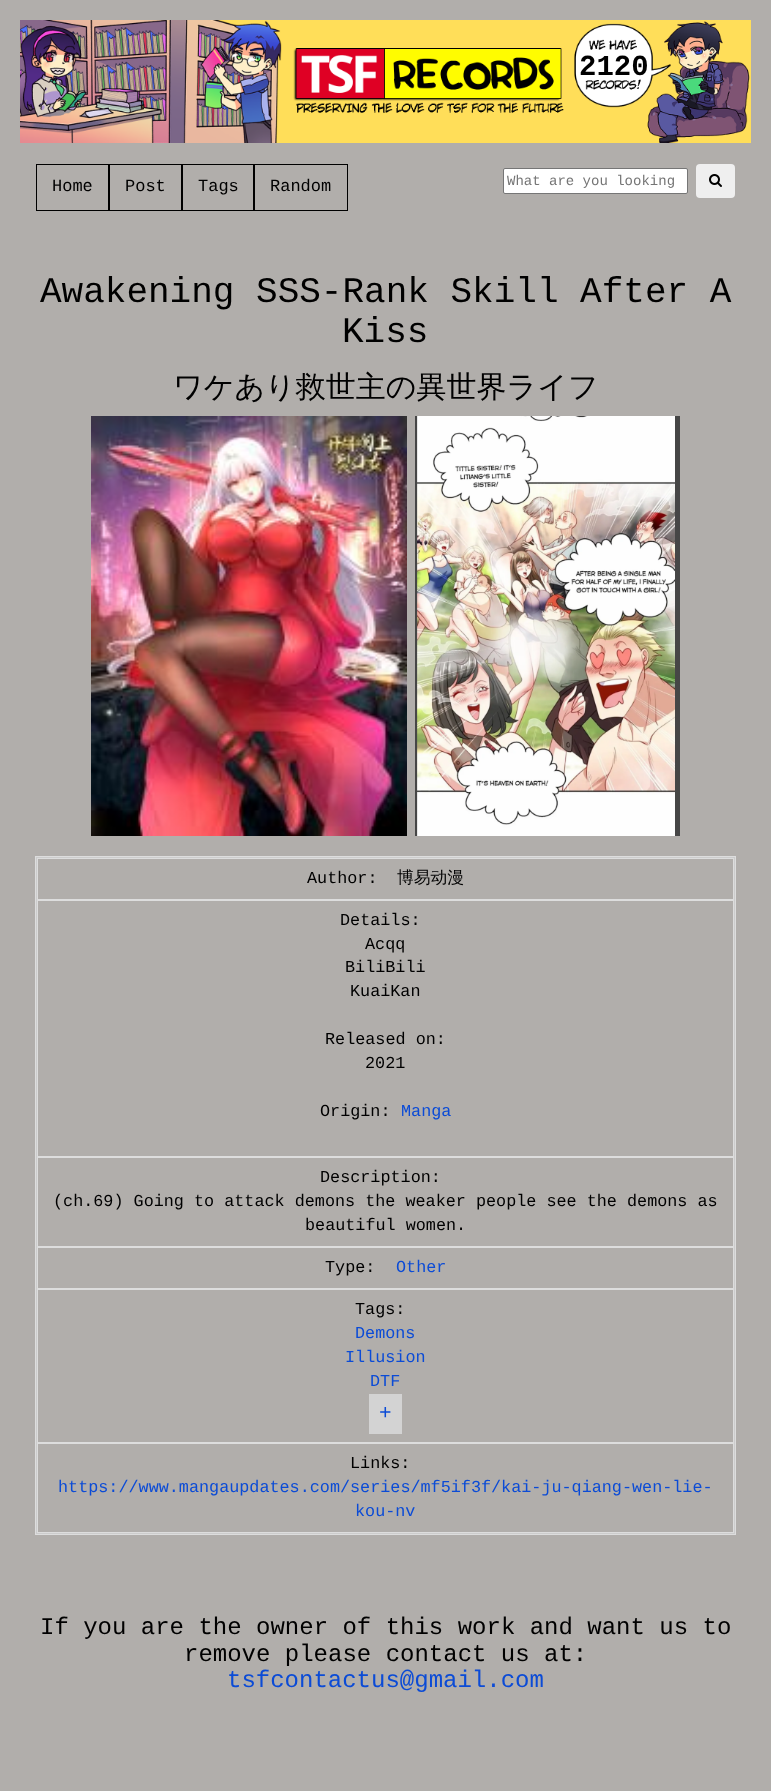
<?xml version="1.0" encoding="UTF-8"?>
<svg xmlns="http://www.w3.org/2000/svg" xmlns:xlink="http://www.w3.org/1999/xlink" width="771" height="1791">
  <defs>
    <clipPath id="clip1"><rect x="507" y="173" width="177" height="16" /></clipPath>
  </defs>
  <rect width="100%" height="100%" fill="#b1aeab" />
  <image x="20" y="20" width="731" height="123" xlink:href="image1.png" />
  <rect x="36.5" y="164.5" width="72" height="46" fill="none" stroke="#000000" />
  <rect x="109.5" y="164.5" width="72" height="46" fill="none" stroke="#000000" />
  <rect x="182.5" y="164.5" width="71" height="46" fill="none" stroke="#000000" />
  <rect x="254.5" y="164.5" width="93" height="46" fill="none" stroke="#000000" />
  <rect x="503.5" y="168.5" width="184" height="25" rx="1.5" fill="#ffffff" stroke="#767676" />
  <rect x="696" y="164" width="39" height="34" rx="4" fill="#efefef" />
  <image x="709" y="174" width="13" height="13" xlink:href="image2.png" />
  <image x="91" y="416" width="316" height="420" xlink:href="image3.png" />
  <image x="415" y="416" width="265" height="420" xlink:href="image4.png" />
  <rect x="35.5" y="856.5" width="700" height="678" fill="none" stroke="#dddddd" />
  <rect x="36.5" y="857.5" width="698" height="676" fill="none" stroke="#cccccc" />
  <rect x="37.5" y="858.5" width="696" height="41" fill="none" stroke="#dddddd" />
  <rect x="37.5" y="900.5" width="696" height="256" fill="none" stroke="#dddddd" />
  <rect x="37.5" y="1157.5" width="696" height="89" fill="none" stroke="#dddddd" />
  <rect x="37.5" y="1247.5" width="696" height="41" fill="none" stroke="#dddddd" />
  <rect x="37.5" y="1289.5" width="696" height="153" fill="none" stroke="#dddddd" />
  <rect x="369" y="1394" width="33" height="40" fill="#d3d3d3" />
  <rect x="37.5" y="1443.5" width="696" height="89" fill="none" stroke="#dddddd" />
  <text x="579" y="75" style="font-family: Liberation Mono; font-size: 29px; font-weight: bold; fill: #000000">2120</text>
  <text x="52" y="191" style="font-family: Liberation Mono; font-size: 17px; fill: #000000">Home</text>
  <text x="125" y="191" style="font-family: Liberation Mono; font-size: 17px; fill: #000000">Post</text>
  <text x="198" y="191" style="font-family: Liberation Mono; font-size: 17px; fill: #000000">Tags</text>
  <text x="270" y="191" style="font-family: Liberation Mono; font-size: 17px; fill: #000000">Random</text>
  <g clip-path="url(#clip1)">
    <text x="507" y="185" style="font-family: Liberation Mono; font-size: 14px; fill: #757575">What are you looking</text>
  </g>
  <text x="40" y="302" style="font-family: Liberation Mono; font-size: 36px; fill: #000000">Awakening SSS-Rank Skill After A</text>
  <text x="342" y="342" style="font-family: Liberation Mono; font-size: 36px; fill: #000000">Kiss</text>
  <text x="173" y="397" style="font-family: WenQuanYi Zen Hei; font-size: 30px; font-weight: 500; fill: #000000">ワケあり救世主の異世界ライフ</text>
  <text x="307" y="883" style="font-family: Liberation Mono; font-size: 16.8px; fill: #000000">Author:</text>
  <text x="397" y="883" style="font-family: WenQuanYi Zen Hei; font-size: 16.8px; font-weight: 500; fill: #000000">博易动漫</text>
  <text x="340" y="925" style="font-family: Liberation Mono; font-size: 16.8px; fill: #000000">Details:</text>
  <text x="365" y="949" style="font-family: Liberation Mono; font-size: 16.8px; fill: #000000">Acqq</text>
  <text x="345" y="972" style="font-family: Liberation Mono; font-size: 16.8px; fill: #000000">BiliBili</text>
  <text x="350" y="996" style="font-family: Liberation Mono; font-size: 16.8px; fill: #000000">KuaiKan</text>
  <text x="325" y="1044" style="font-family: Liberation Mono; font-size: 16.8px; fill: #000000">Released on:</text>
  <text x="365" y="1068" style="font-family: Liberation Mono; font-size: 16.8px; fill: #000000">2021</text>
  <text x="320" y="1116" style="font-family: Liberation Mono; font-size: 16.8px; fill: #000000">Origin:</text>
  <text x="401" y="1116" style="font-family: Liberation Mono; font-size: 16.8px; fill: #0b4bd6">Manga</text>
  <text x="320" y="1182" style="font-family: Liberation Mono; font-size: 16.8px; fill: #000000">Description:</text>
  <text x="53" y="1206" style="font-family: Liberation Mono; font-size: 16.8px; fill: #000000">(ch.69) Going to attack demons the weaker people see the demons as</text>
  <text x="305" y="1230" style="font-family: Liberation Mono; font-size: 16.8px; fill: #000000">beautiful women.</text>
  <text x="325" y="1272" style="font-family: Liberation Mono; font-size: 16.8px; fill: #000000">Type:</text>
  <text x="396" y="1272" style="font-family: Liberation Mono; font-size: 16.8px; fill: #0b4bd6">Other</text>
  <text x="355" y="1314" style="font-family: Liberation Mono; font-size: 16.8px; fill: #000000">Tags:</text>
  <text x="355" y="1338" style="font-family: Liberation Mono; font-size: 16.8px; fill: #0b4bd6">Demons</text>
  <text x="345" y="1362" style="font-family: Liberation Mono; font-size: 16.8px; fill: #0b4bd6">Illusion</text>
  <text x="370" y="1386" style="font-family: Liberation Mono; font-size: 16.8px; fill: #0b4bd6">DTF</text>
  <text x="379" y="1419" style="font-family: Liberation Mono; font-size: 21px; fill: #0b4bd6">+</text>
  <text x="350" y="1468" style="font-family: Liberation Mono; font-size: 16.8px; fill: #000000">Links:</text>
  <text x="58" y="1492" style="font-family: Liberation Mono; font-size: 16.8px; fill: #0b4bd6">https://www.mangaupdates.com/series/mf5if3f/kai-ju-qiang-wen-lie-</text>
  <text x="355" y="1516" style="font-family: Liberation Mono; font-size: 16.8px; fill: #0b4bd6">kou-nv</text>
  <text x="40" y="1634" style="font-family: Liberation Mono; font-size: 24px; fill: #000000">If you are the owner of this work and want us to</text>
  <text x="184" y="1661" style="font-family: Liberation Mono; font-size: 24px; fill: #000000">remove please contact us at:</text>
  <text x="227" y="1687" style="font-family: Liberation Mono; font-size: 24px; fill: #0b4bd6">tsfcontactus@gmail.com</text>
</svg>
